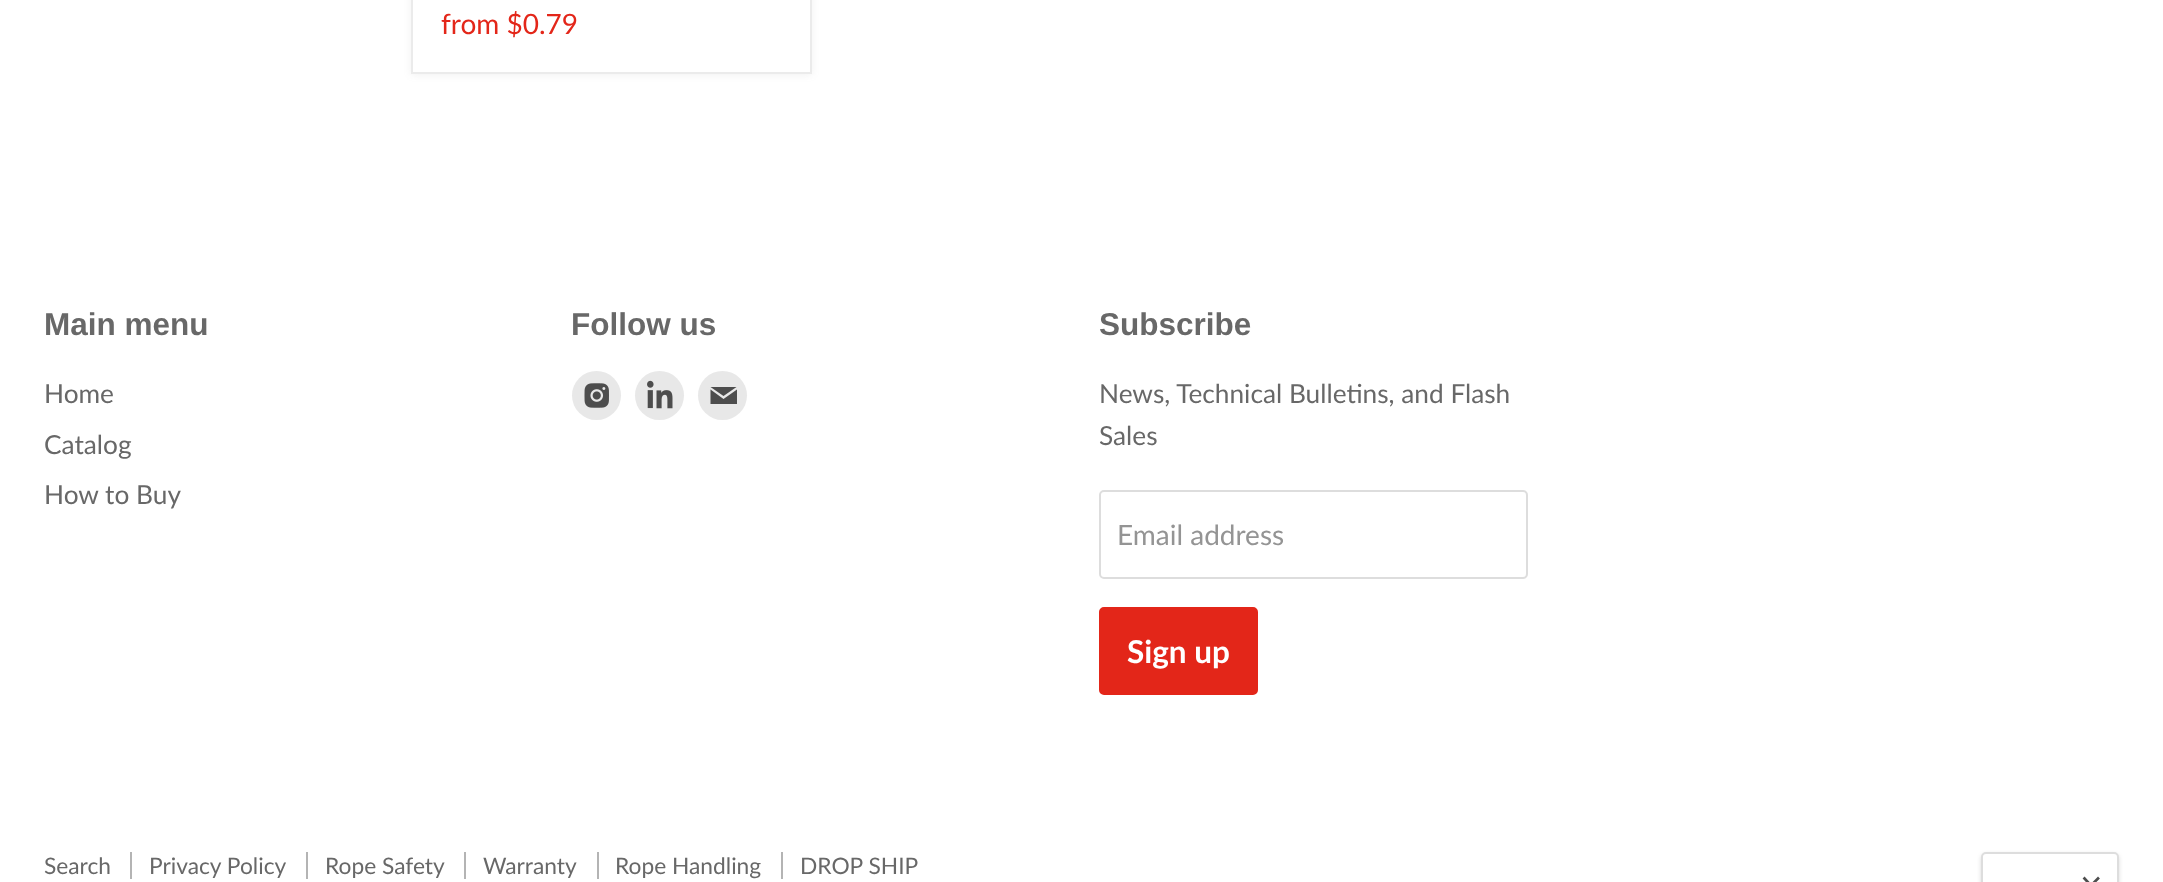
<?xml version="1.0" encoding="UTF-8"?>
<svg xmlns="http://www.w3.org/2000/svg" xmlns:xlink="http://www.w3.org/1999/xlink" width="2163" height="882">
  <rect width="100%" height="100%" fill="#ffffff" />
  <rect x="411" y="-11" width="401" height="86" fill="#7f7f7f" fill-opacity="0.11" filter="blur(3.5px)" />
  <rect x="412" y="-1" width="399" height="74" fill="#ffffff" stroke="#ebebeb" stroke-width="2" />
  <circle cx="596.5" cy="395.5" r="24.5" fill="#e8e8e8" />
  <image x="584" y="383" width="25" height="25" xlink:href="image1.png" />
  <circle cx="659.5" cy="395.5" r="24.5" fill="#e8e8e8" />
  <image x="647" y="380" width="26" height="29" xlink:href="image2.png" />
  <circle cx="722.5" cy="395.5" r="24.5" fill="#e8e8e8" />
  <path d="M 736.5 387 h -26 l 13 9 z m -13 12 l -13 -9.5 v 14.5 h 26.5 v -14.5 z" fill="#4d4d4d" fill-rule="evenodd" />
  <rect x="1100" y="491" width="427" height="87" rx="4" fill="none" stroke="#dddddd" stroke-width="2" />
  <rect x="1100" y="608" width="157" height="86" rx="4" fill="#e32619" stroke="#e32619" stroke-width="2" />
  <rect x="130" y="852" width="2" height="27" fill="#b4b4b4" />
  <rect x="306" y="852" width="2" height="27" fill="#b4b4b4" />
  <rect x="464" y="852" width="2" height="27" fill="#b4b4b4" />
  <rect x="597" y="852" width="2" height="27" fill="#b4b4b4" />
  <rect x="781" y="852" width="2" height="27" fill="#b4b4b4" />
  <rect x="1981" y="854" width="138" height="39" rx="5" fill="#000000" fill-opacity="0.15" filter="blur(2px)" />
  <rect x="1982" y="853" width="136" height="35" rx="4" fill="#ffffff" stroke="#dddddd" stroke-width="2" />
  <path d="M 2091 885.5 l 7 -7 m -7 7 l -6.5 -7" fill="none" stroke="#4d4d4d" stroke-width="2.7" stroke-linecap="square" />
  <text x="441" y="34" style="font-family: Lato; font-size: 28px; fill: #e32619">from $0.79</text>
  <text x="44" y="335" style="font-family: Liberation Sans; font-size: 31.5px; font-weight: bold; fill: #686868">Main menu</text>
  <text x="44" y="403" style="font-family: Lato; font-size: 26.25px; fill: #686868">Home</text>
  <text x="44" y="454" style="font-family: Lato; font-size: 26.25px; fill: #686868">Catalog</text>
  <text x="44" y="504" style="font-family: Lato; font-size: 26.25px; fill: #686868">How to Buy</text>
  <text x="571" y="335" style="font-family: Liberation Sans; font-size: 31.5px; font-weight: bold; fill: #686868">Follow us</text>
  <text x="1099" y="335" style="font-family: Liberation Sans; font-size: 31.5px; font-weight: bold; fill: #686868">Subscribe</text>
  <text x="1099" y="403" style="font-family: Lato; font-size: 26.25px; fill: #686868">News, Technical Bulletins, and Flash</text>
  <text x="1099" y="445" style="font-family: Lato; font-size: 26.25px; fill: #686868">Sales</text>
  <text x="1117" y="545" style="font-family: Lato; font-size: 28px; fill: #949494">Email address</text>
  <text x="1127" y="663" style="font-family: Lato; font-size: 31.5px; font-weight: bold; fill: #ffffff">Sign up</text>
  <text x="44" y="874" style="font-family: Lato; font-size: 22.75px; fill: #686868">Search</text>
  <text x="149" y="874" style="font-family: Lato; font-size: 22.75px; fill: #686868">Privacy Policy</text>
  <text x="325" y="874" style="font-family: Lato; font-size: 22.75px; fill: #686868">Rope Safety</text>
  <text x="483" y="874" style="font-family: Lato; font-size: 22.75px; fill: #686868">Warranty</text>
  <text x="615" y="874" style="font-family: Lato; font-size: 22.75px; fill: #686868">Rope Handling</text>
  <text x="800" y="874" style="font-family: Lato; font-size: 22.75px; fill: #686868">DROP SHIP</text>
</svg>
